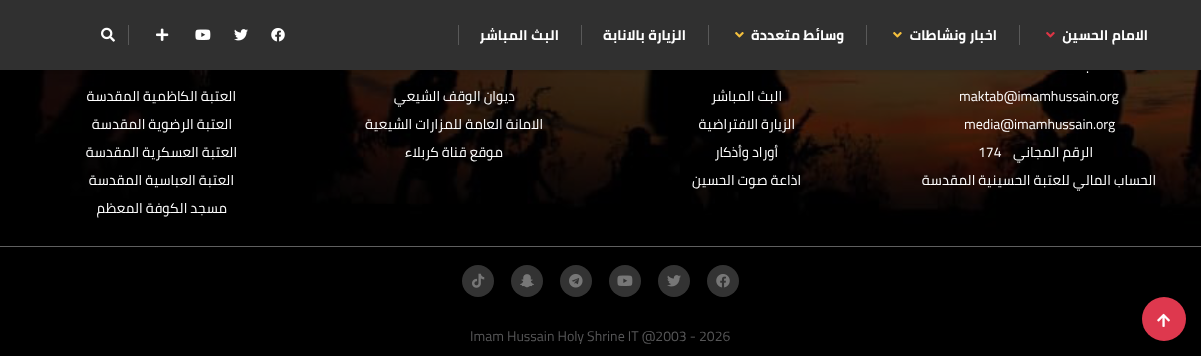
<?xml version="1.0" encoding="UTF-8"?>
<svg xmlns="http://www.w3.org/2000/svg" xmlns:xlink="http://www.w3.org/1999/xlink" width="1201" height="356">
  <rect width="100%" height="100%" fill="#ffffff" />
  <image x="0" y="70" width="1201" height="286" xlink:href="image9.png" />
  <rect y="2" width="1201" height="70" fill="#000000" fill-opacity="0.08" filter="blur(1px)" />
  <rect width="1201" height="70" fill="#303030" />
  <image x="1046" y="32" width="9" height="6" xlink:href="image1.png" />
  <rect x="1019" y="25" width="1" height="20" fill="#595959" />
  <image x="893" y="32" width="9" height="6" xlink:href="image2.png" />
  <rect x="866" y="25" width="1" height="20" fill="#595959" />
  <image x="735" y="32" width="9" height="6" xlink:href="image2.png" />
  <rect x="708" y="25" width="1" height="20" fill="#595959" />
  <rect x="581" y="25" width="1" height="20" fill="#595959" />
  <rect x="458" y="25" width="1" height="20" fill="#595959" />
  <image x="271" y="28" width="14" height="14" xlink:href="image3.png" />
  <image x="234" y="29" width="14" height="12" xlink:href="image4.png" />
  <image x="195" y="29" width="16" height="11" xlink:href="image5.png" />
  <image x="156" y="28" width="13" height="13" xlink:href="image6.png" />
  <rect x="128" y="25" width="1" height="20" fill="#595959" />
  <image x="101" y="27" width="14" height="15" xlink:href="image7.png" />
  <circle cx="1164" cy="319" r="22" fill="#de384e" />
  <image x="1157" y="313" width="13" height="14" xlink:href="image8.png" />
  <rect y="246" width="1201" height="1" fill="#5f5f5f" />
  <circle cx="723" cy="281" r="16" fill="#333333" />
  <image x="716" y="274" width="14" height="14" xlink:href="image10.png" />
  <circle cx="674" cy="281" r="16" fill="#333333" />
  <image x="667" y="275" width="14" height="12" xlink:href="image11.png" />
  <circle cx="625" cy="281" r="16" fill="#333333" />
  <image x="617" y="275" width="16" height="11" xlink:href="image12.png" />
  <circle cx="576" cy="281" r="16" fill="#333333" />
  <image x="569" y="274" width="14" height="14" xlink:href="image13.png" />
  <circle cx="527" cy="281" r="16" fill="#333333" />
  <image x="520" y="274" width="14" height="14" xlink:href="image14.png" />
  <circle cx="478" cy="281" r="16" fill="#333333" />
  <image x="472" y="273" width="13" height="15" xlink:href="image15.png" />
  <text x="1148" y="40" style="font-family: Cairo; font-size: 14px; font-weight: bold; direction: rtl; fill: #ffffff">الامام الحسين</text>
  <text x="997" y="40" style="font-family: Cairo; font-size: 14px; font-weight: bold; direction: rtl; fill: #ffffff">اخبار ونشاطات</text>
  <text x="844" y="40" style="font-family: Cairo; font-size: 14px; font-weight: bold; direction: rtl; fill: #ffffff">وسائط متعددة</text>
  <text x="686" y="40" style="font-family: Cairo; font-size: 14px; font-weight: bold; direction: rtl; fill: #ffffff">الزيارة بالانابة</text>
  <text x="559" y="40" style="font-family: Cairo; font-size: 14px; font-weight: bold; direction: rtl; fill: #ffffff">البث المباشر</text>
  <text x="1086" y="73" style="font-family: Cairo; font-size: 14px; fill: #ffffff">.</text>
  <text x="959" y="101" style="font-family: Cairo; font-size: 14px; fill: #ffffff">maktab@imamhussain.org</text>
  <text x="964" y="129" style="font-family: Cairo; font-size: 14px; fill: #ffffff">media@imamhussain.org</text>
  <text x="1093" y="157" style="font-family: Cairo; font-size: 14px; direction: rtl; fill: #ffffff">الرقم المجاني</text>
  <text x="978" y="157" style="font-family: Cairo; font-size: 14px; fill: #ffffff">174</text>
  <text x="1156" y="185" style="font-family: Cairo; font-size: 14px; direction: rtl; fill: #ffffff">الحساب المالي للعتبة الحسينية المقدسة</text>
  <text x="782" y="101" style="font-family: Cairo; font-size: 14px; direction: rtl; fill: #ffffff">البث المباشر</text>
  <text x="795" y="129" style="font-family: Cairo; font-size: 14px; direction: rtl; fill: #ffffff">الزيارة الافتراضية</text>
  <text x="778" y="157" style="font-family: Cairo; font-size: 14px; direction: rtl; fill: #ffffff">أوراد وأذكار</text>
  <text x="801" y="185" style="font-family: Cairo; font-size: 14px; direction: rtl; fill: #ffffff">اذاعة صوت الحسين</text>
  <text x="515" y="101" style="font-family: Cairo; font-size: 14px; direction: rtl; fill: #ffffff">ديوان الوقف الشيعي</text>
  <text x="543" y="129" style="font-family: Cairo; font-size: 14px; direction: rtl; fill: #ffffff">الامانة العامة للمزارات الشيعية</text>
  <text x="503" y="157" style="font-family: Cairo; font-size: 14px; direction: rtl; fill: #ffffff">موقع قناة كربلاء</text>
  <text x="236" y="101" style="font-family: Cairo; font-size: 14px; direction: rtl; fill: #ffffff">العتبة الكاظمية المقدسة</text>
  <text x="232" y="129" style="font-family: Cairo; font-size: 14px; direction: rtl; fill: #ffffff">العتبة الرضوية المقدسة</text>
  <text x="237" y="157" style="font-family: Cairo; font-size: 14px; direction: rtl; fill: #ffffff">العتبة العسكرية المقدسة</text>
  <text x="234" y="185" style="font-family: Cairo; font-size: 14px; direction: rtl; fill: #ffffff">العتبة العباسية المقدسة</text>
  <text x="227" y="213" style="font-family: Cairo; font-size: 14px; direction: rtl; fill: #ffffff">مسجد الكوفة المعظم</text>
  <text x="470" y="341" style="font-family: Cairo; font-size: 14px; fill: #575758">Imam Hussain Holy Shrine IT @2003 - 2026</text>
</svg>
